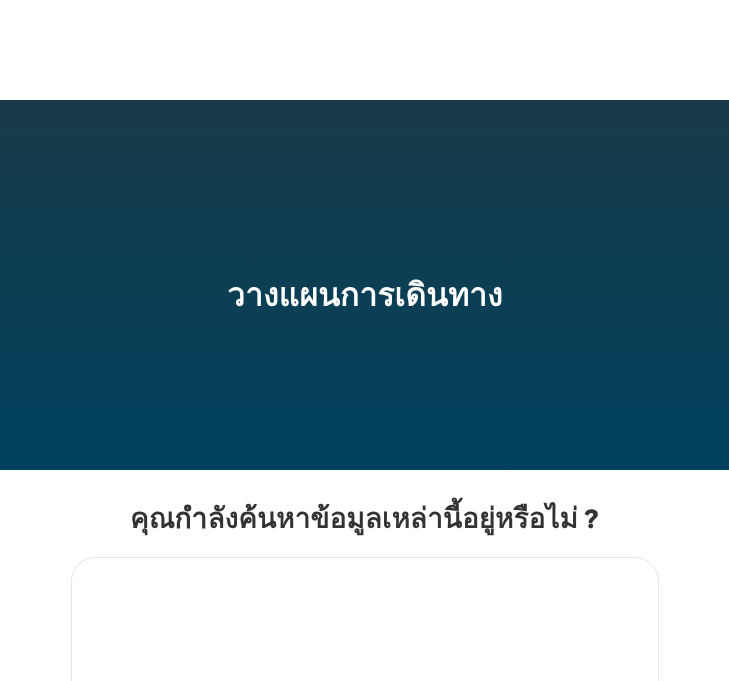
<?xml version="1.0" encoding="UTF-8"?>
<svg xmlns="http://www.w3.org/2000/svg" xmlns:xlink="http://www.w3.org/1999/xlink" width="729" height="681">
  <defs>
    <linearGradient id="g1" gradientUnits="userSpaceOnUse" x1="365" y1="100" x2="365" y2="470"><stop offset="0" stop-color="#193b49" /><stop offset="1" stop-color="#00425f" /></linearGradient>
  </defs>
  <rect width="100%" height="100%" fill="#ffffff" />
  <rect y="100" width="729" height="370" fill="url(#g1)" />
  <rect x="71.5" y="557.5" width="587" height="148" rx="23.5" fill="none" stroke="#e1e7ea" />
  <text x="227" y="306" style="font-family: Loma; font-size: 32px; font-weight: bold; fill: #ffffff">วางแผนการเดินทาง</text>
  <text x="130" y="528" style="font-family: Loma; font-size: 28px; font-weight: bold; fill: #333333">คุณกำลังค้นหาข้อมูลเหล่านี้อยู่หรือไม่</text>
  <text x="584" y="528" style="font-family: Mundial; font-size: 28px; font-weight: bold; fill: #333333">?</text>
</svg>
